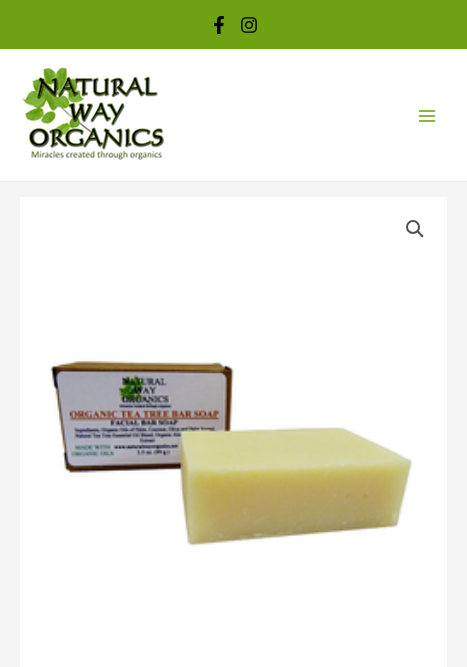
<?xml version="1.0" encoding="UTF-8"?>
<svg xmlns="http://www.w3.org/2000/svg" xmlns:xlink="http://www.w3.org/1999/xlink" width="467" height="667">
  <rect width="100%" height="100%" fill="#f5f5f5" />
  <rect width="467" height="49" fill="#6ea213" />
  <rect y="49" width="467" height="1" fill="#eaeaea" />
  <image x="214" y="16" width="10" height="18" xlink:href="image1.png" />
  <image x="241" y="17" width="16" height="16" xlink:href="image2.png" />
  <rect y="50" width="467" height="131" fill="#ffffff" />
  <rect y="181" width="467" height="1" fill="#eaeaea" />
  <image x="22" y="67" width="142" height="93" xlink:href="image3.png" />
  <image x="418" y="110" width="18" height="12" xlink:href="image4.png" />
  <image x="20" y="197" width="427" height="470" xlink:href="image5.png" />
  <circle cx="413" cy="227" r="6" fill="none" stroke="#4b4f58" stroke-width="2" />
  <path d="M 417.5 231 c 1 -1 3 1.5 3.5 2.5 c 0.5 0.5 3.5 2 2 3.5 c -1 1 -3 -1.5 -3.5 -2.5 c -0.5 -0.5 -3 -2 -2 -3.5 z" fill="#4b4f58" />
</svg>
